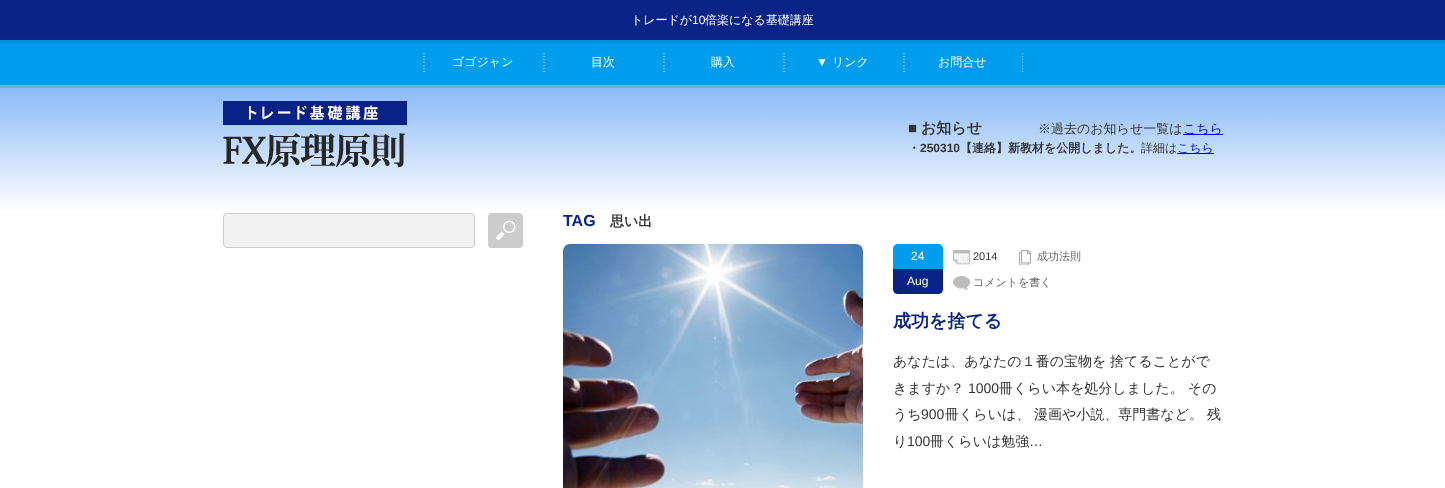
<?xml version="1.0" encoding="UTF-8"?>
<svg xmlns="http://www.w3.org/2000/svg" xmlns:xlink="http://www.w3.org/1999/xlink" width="1445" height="488">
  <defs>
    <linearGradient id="g1" gradientUnits="userSpaceOnUse" x1="723" y1="85" x2="723" y2="213"><stop offset="0" stop-color="#88b8f7" /><stop offset="1" stop-color="#ffffff" /></linearGradient>
  </defs>
  <rect width="100%" height="100%" fill="#ffffff" />
  <rect width="1445" height="40" fill="#092387" />
  <rect y="40" width="1445" height="3" fill="#008fd8" />
  <rect y="43" width="1445" height="42" fill="#009ded" />
  <image x="1022" y="53" width="1" height="19" xlink:href="image1.png" />
  <image x="423" y="53" width="2" height="19" xlink:href="image2.png" />
  <image x="543" y="53" width="2" height="19" xlink:href="image2.png" />
  <image x="663" y="53" width="2" height="19" xlink:href="image2.png" />
  <image x="783" y="53" width="2" height="19" xlink:href="image2.png" />
  <image x="903" y="53" width="2" height="19" xlink:href="image2.png" />
  <rect y="85" width="1445" height="3" fill="#7da8e1" />
  <rect y="88" width="1445" height="122" fill="url(#g1)" />
  <image x="223" y="101" width="184" height="67" xlink:href="image3.png" />
  <rect x="1183" y="134" width="40" height="1" fill="#0000ee" />
  <rect x="1177" y="153" width="37" height="1" fill="#0000ee" />
  <rect x="223.5" y="213.5" width="251" height="34" rx="3.5" fill="#f2f2f2" stroke="#cccccc" />
  <rect x="488" y="213" width="35" height="35" rx="4" fill="#cccccc" />
  <image x="496" y="220" width="20" height="20" xlink:href="image4.png" />
  <image x="563" y="244" width="300" height="244" xlink:href="image5.png" />
  <path d="M 898 244 h 40 c 3 0 5 2 5 5 v 20 h -50 v -20 c 0 -3 2 -5 5 -5 z" fill="#009ded" />
  <path d="M 893 269 h 50 v 20 c 0 3 -2 5 -5 5 h -40 c -3 0 -5 -2 -5 -5 z" fill="#092387" />
  <image x="953" y="250" width="17" height="15" xlink:href="image6.png" />
  <image x="1019" y="250" width="12" height="15" xlink:href="image7.png" />
  <image x="953" y="276" width="17" height="14" xlink:href="image8.png" />
  <text x="631" y="24" style="font-family: WenQuanYi Zen Hei; font-size: 12px; font-weight: 500; fill: #ffffff">トレードが</text>
  <text x="692" y="24" style="font-family: Liberation Sans; font-size: 12px; fill: #ffffff">10</text>
  <text x="705" y="24" style="font-family: WenQuanYi Zen Hei; font-size: 12px; font-weight: 500; fill: #ffffff">倍楽になる基礎講座</text>
  <text x="452" y="66" style="font-family: WenQuanYi Zen Hei; font-size: 12px; font-weight: 500; fill: #ffffff">ゴゴジャン</text>
  <text x="591" y="66" style="font-family: WenQuanYi Zen Hei; font-size: 12px; font-weight: 500; fill: #ffffff">目次</text>
  <text x="711" y="66" style="font-family: WenQuanYi Zen Hei; font-size: 12px; font-weight: 500; fill: #ffffff">購入</text>
  <text x="816" y="66" style="font-family: Liberation Sans; font-size: 12px; fill: #ffffff">▼</text>
  <text x="832" y="66" style="font-family: WenQuanYi Zen Hei; font-size: 12px; font-weight: 500; fill: #ffffff">リンク</text>
  <text x="938" y="66" style="font-family: WenQuanYi Zen Hei; font-size: 12px; font-weight: 500; fill: #ffffff">お問合せ</text>
  <text x="908" y="133" style="font-family: Liberation Sans; font-size: 15px; font-weight: bold; fill: #333333">■</text>
  <text x="921" y="133" style="font-family: WenQuanYi Zen Hei; font-size: 15px; font-weight: bold; fill: #333333">お知らせ</text>
  <text x="1038" y="133" style="font-family: WenQuanYi Zen Hei; font-size: 13px; font-weight: 500; fill: #333333">※過去のお知らせ一覧は</text>
  <text x="1183" y="133" style="font-family: WenQuanYi Zen Hei; font-size: 13px; font-weight: 500; fill: #0000ee">こちら</text>
  <text x="908" y="152" style="font-family: WenQuanYi Zen Hei; font-size: 12px; font-weight: bold; fill: #333333">・</text>
  <text x="920" y="152" style="font-family: Liberation Sans; font-size: 12px; font-weight: bold; fill: #333333">250310</text>
  <text x="960" y="152" style="font-family: WenQuanYi Zen Hei; font-size: 12px; font-weight: bold; fill: #333333">【連絡】新教材を公開しました。</text>
  <text x="1141" y="152" style="font-family: WenQuanYi Zen Hei; font-size: 12px; font-weight: 500; fill: #333333">詳細は</text>
  <text x="1177" y="152" style="font-family: WenQuanYi Zen Hei; font-size: 12px; font-weight: 500; fill: #0000ee">こちら</text>
  <text x="563" y="226" style="font-family: Liberation Sans; font-size: 16px; font-weight: bold; fill: #092387">TAG</text>
  <text x="610" y="226" style="font-family: WenQuanYi Zen Hei; font-size: 14px; font-weight: bold; fill: #333333">思い出</text>
  <text x="911" y="260" style="font-family: Liberation Sans; font-size: 12px; fill: #ffffff">24</text>
  <text x="907" y="285" style="font-family: Liberation Sans; font-size: 12px; fill: #ffffff">Aug</text>
  <text x="973" y="260" style="font-family: Liberation Sans; font-size: 11px; fill: #333333">2014</text>
  <text x="1037" y="260" style="font-family: WenQuanYi Zen Hei; font-size: 11px; font-weight: 500; fill: #666666">成功法則</text>
  <text x="973" y="286" style="font-family: WenQuanYi Zen Hei; font-size: 11px; font-weight: 500; fill: #666666">コメントを書く</text>
  <text x="893" y="327" style="font-family: WenQuanYi Zen Hei; font-size: 18px; font-weight: bold; fill: #092387">成功を捨てる</text>
  <text x="893" y="366" style="font-family: WenQuanYi Zen Hei; font-size: 14px; font-weight: 500; fill: #333333">あなたは、あなたの１番の宝物を</text>
  <text x="1110" y="366" style="font-family: WenQuanYi Zen Hei; font-size: 14px; font-weight: 500; fill: #333333">捨てることがで</text>
  <text x="893" y="393" style="font-family: WenQuanYi Zen Hei; font-size: 14px; font-weight: 500; fill: #333333">きますか？</text>
  <text x="968" y="393" style="font-family: Liberation Sans; font-size: 14px; fill: #333333">1000</text>
  <text x="999" y="393" style="font-family: WenQuanYi Zen Hei; font-size: 14px; font-weight: 500; fill: #333333">冊くらい本を処分しました。 その</text>
  <text x="893" y="419" style="font-family: WenQuanYi Zen Hei; font-size: 14px; font-weight: 500; fill: #333333">うち</text>
  <text x="921" y="419" style="font-family: Liberation Sans; font-size: 14px; fill: #333333">900</text>
  <text x="945" y="419" style="font-family: WenQuanYi Zen Hei; font-size: 14px; font-weight: 500; fill: #333333">冊くらいは、</text>
  <text x="1034" y="419" style="font-family: WenQuanYi Zen Hei; font-size: 14px; font-weight: 500; fill: #333333">漫画や小説、専門書など。</text>
  <text x="1207" y="419" style="font-family: WenQuanYi Zen Hei; font-size: 14px; font-weight: 500; fill: #333333">残</text>
  <text x="893" y="446" style="font-family: WenQuanYi Zen Hei; font-size: 14px; font-weight: 500; fill: #333333">り</text>
  <text x="907" y="446" style="font-family: Liberation Sans; font-size: 14px; fill: #333333">100</text>
  <text x="930" y="446" style="font-family: WenQuanYi Zen Hei; font-size: 14px; font-weight: 500; fill: #333333">冊くらいは勉強</text>
  <text x="1029" y="446" style="font-family: Liberation Sans; font-size: 14px; fill: #333333">…</text>
</svg>
